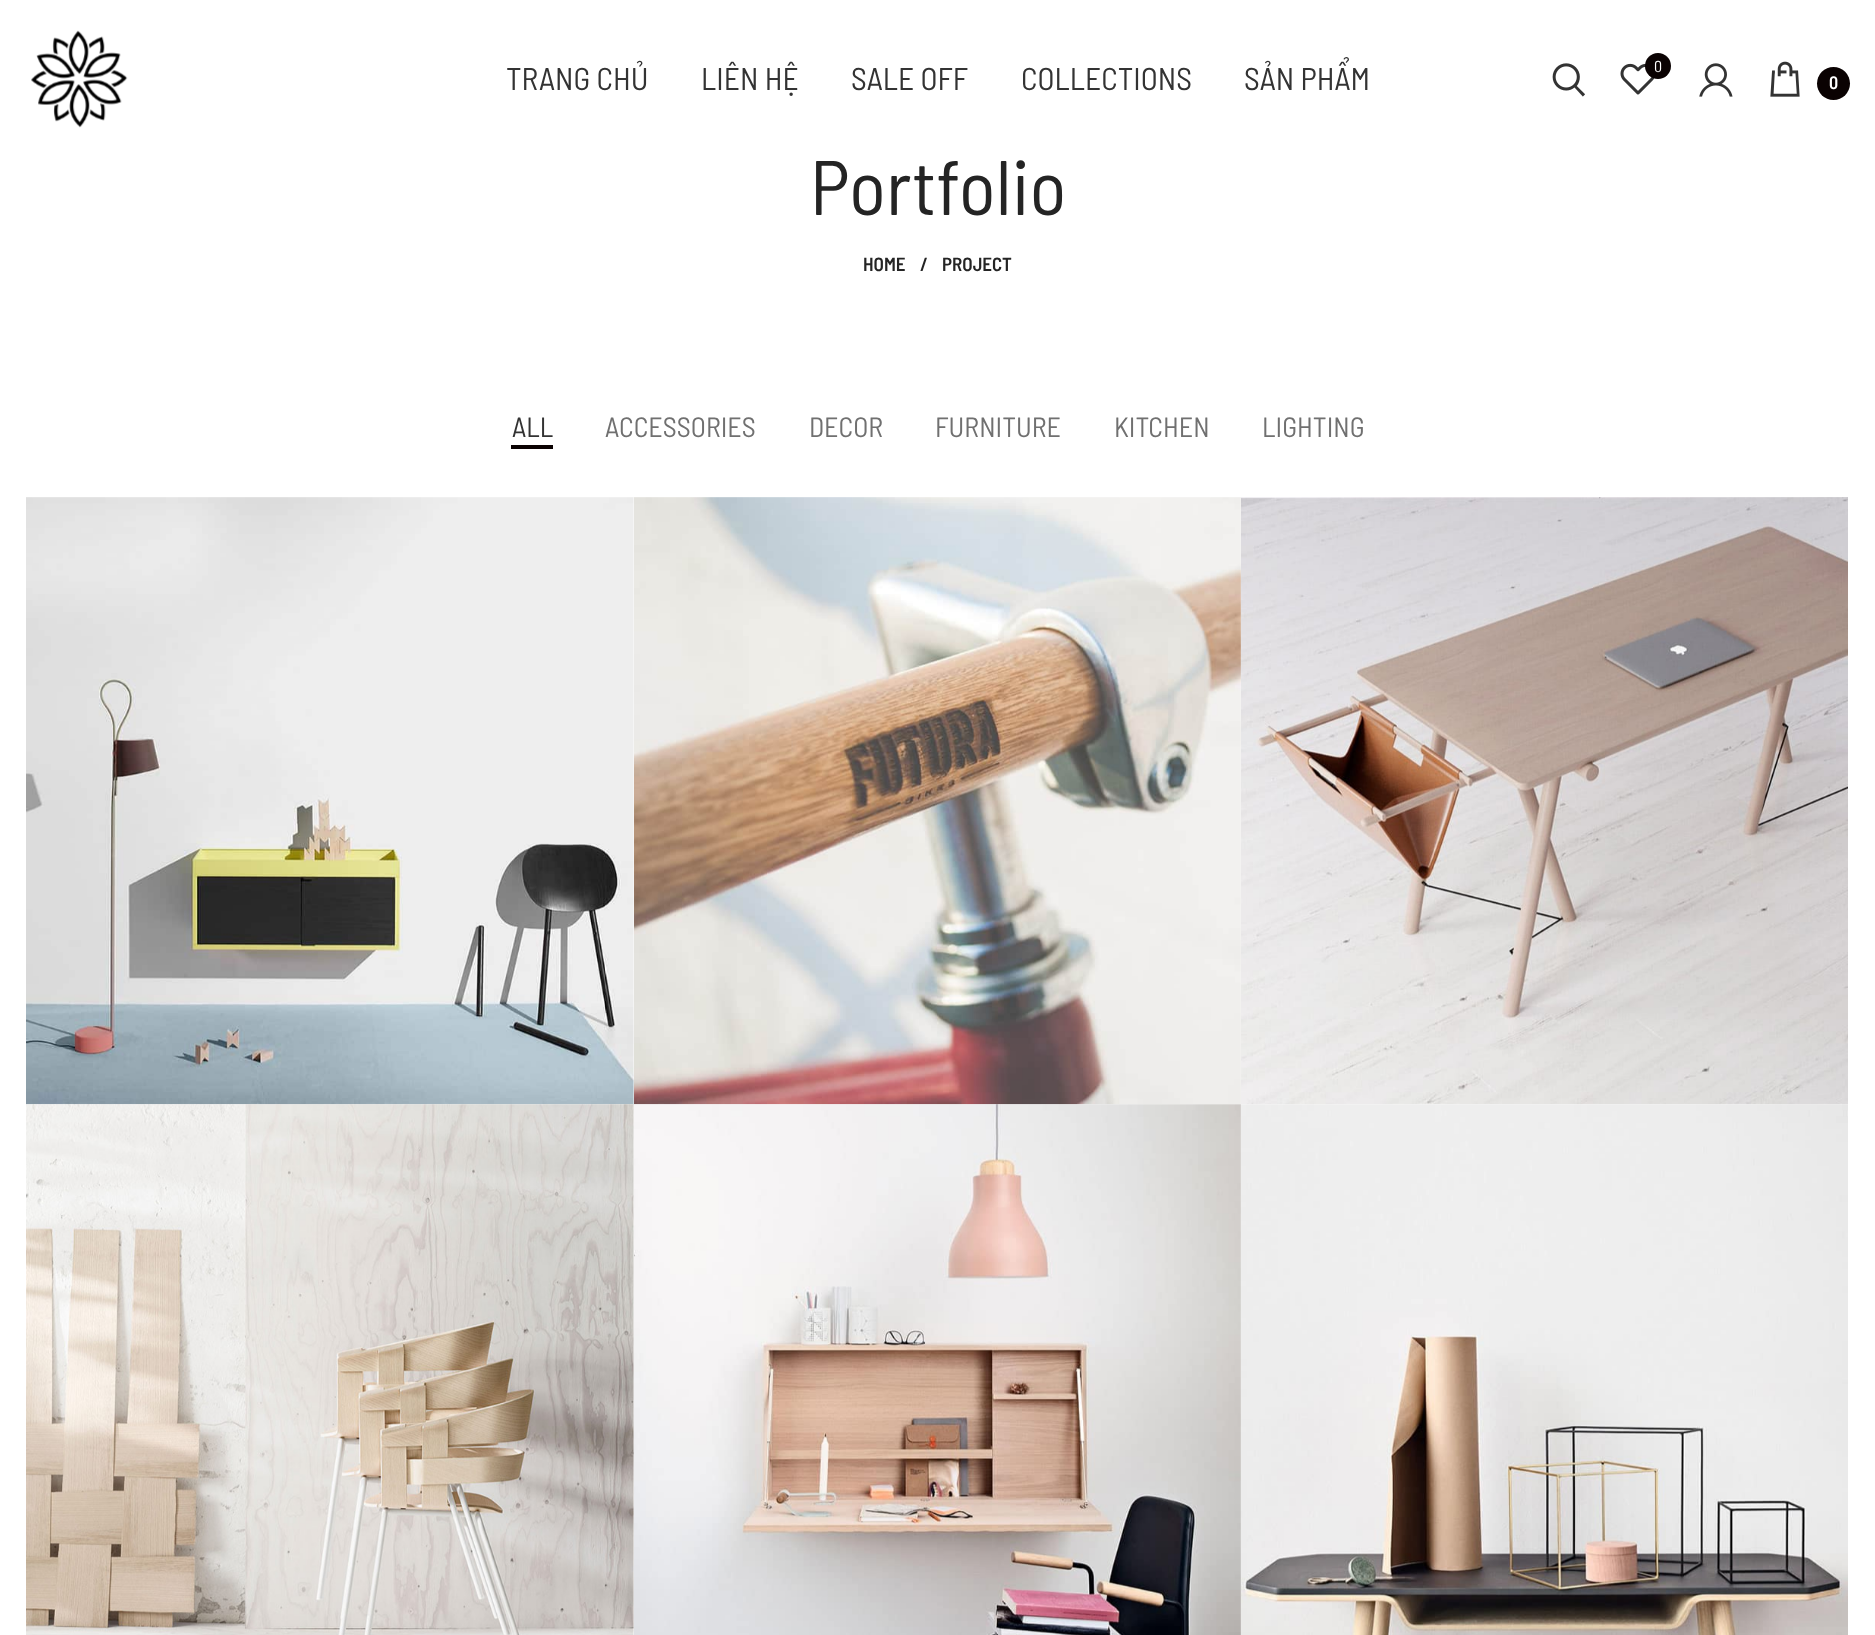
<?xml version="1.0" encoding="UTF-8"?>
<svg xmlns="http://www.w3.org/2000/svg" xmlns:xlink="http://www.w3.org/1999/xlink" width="1875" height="1635">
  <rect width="100%" height="100%" fill="#ffffff" />
  <image x="31" y="30" width="97" height="98" xlink:href="image1.png" />
  <image x="1552" y="63" width="33" height="34" xlink:href="image2.png" />
  <image x="1620" y="63" width="35" height="32" xlink:href="image3.png" />
  <circle cx="1658" cy="66" r="13" fill="#0a0202" />
  <image x="1699" y="63" width="34" height="34" xlink:href="image4.png" />
  <image x="1770" y="61" width="30" height="36" xlink:href="image5.png" />
  <circle cx="1833.5" cy="83.5" r="16.5" fill="#0a0202" />
  <rect x="511" y="445" width="42" height="4" fill="#0a0202" />
  <image x="26" y="497" width="608" height="608" xlink:href="image6.png" />
  <image x="634" y="497" width="607" height="608" xlink:href="image7.png" />
  <image x="1241" y="497" width="607" height="608" xlink:href="image8.png" />
  <image x="26" y="1104" width="608" height="531" xlink:href="image9.png" />
  <image x="634" y="1104" width="607" height="531" xlink:href="image10.png" />
  <image x="1241" y="1104" width="607" height="531" xlink:href="image11.png" />
  <text x="506" y="90" style="font-family: Barlow Semi Condensed; font-size: 31.5px; fill: #333333">TRANG CHỦ</text>
  <text x="701" y="90" style="font-family: Barlow Semi Condensed; font-size: 31.5px; fill: #333333">LIÊN HỆ</text>
  <text x="851" y="90" style="font-family: Barlow Semi Condensed; font-size: 31.5px; fill: #333333">SALE OFF</text>
  <text x="1021" y="90" style="font-family: Barlow Semi Condensed; font-size: 31.5px; fill: #333333">COLLECTIONS</text>
  <text x="1244" y="90" style="font-family: Barlow Semi Condensed; font-size: 31.5px; fill: #333333">SẢN PHẨM</text>
  <text x="1654" y="72" style="font-family: Barlow Semi Condensed; font-size: 16px; fill: #ffffff">0</text>
  <text x="1829" y="89" style="font-family: Barlow Semi Condensed; font-size: 18px; font-weight: 600; fill: #ffffff">0</text>
  <text x="810" y="215" style="font-family: Barlow Semi Condensed; font-size: 77px; fill: #242424">Portfolio</text>
  <text x="863" y="271" style="font-family: Barlow Semi Condensed; font-size: 19px; font-weight: 600; fill: #242424">HOME</text>
  <text x="920" y="271" style="font-family: Barlow Semi Condensed; font-size: 19px; font-weight: 600; fill: #242424">/</text>
  <text x="942" y="271" style="font-family: Barlow Semi Condensed; font-size: 19px; font-weight: 600; fill: #242424">PROJECT</text>
  <text x="512" y="437" style="font-family: Barlow Semi Condensed; font-size: 28px; fill: #333333">ALL</text>
  <text x="605" y="437" style="font-family: Barlow Semi Condensed; font-size: 28px; fill: #707070">ACCESSORIES</text>
  <text x="809" y="437" style="font-family: Barlow Semi Condensed; font-size: 28px; fill: #707070">DECOR</text>
  <text x="935" y="437" style="font-family: Barlow Semi Condensed; font-size: 28px; fill: #707070">FURNITURE</text>
  <text x="1114" y="437" style="font-family: Barlow Semi Condensed; font-size: 28px; fill: #707070">KITCHEN</text>
  <text x="1262" y="437" style="font-family: Barlow Semi Condensed; font-size: 28px; fill: #707070">LIGHTING</text>
</svg>
